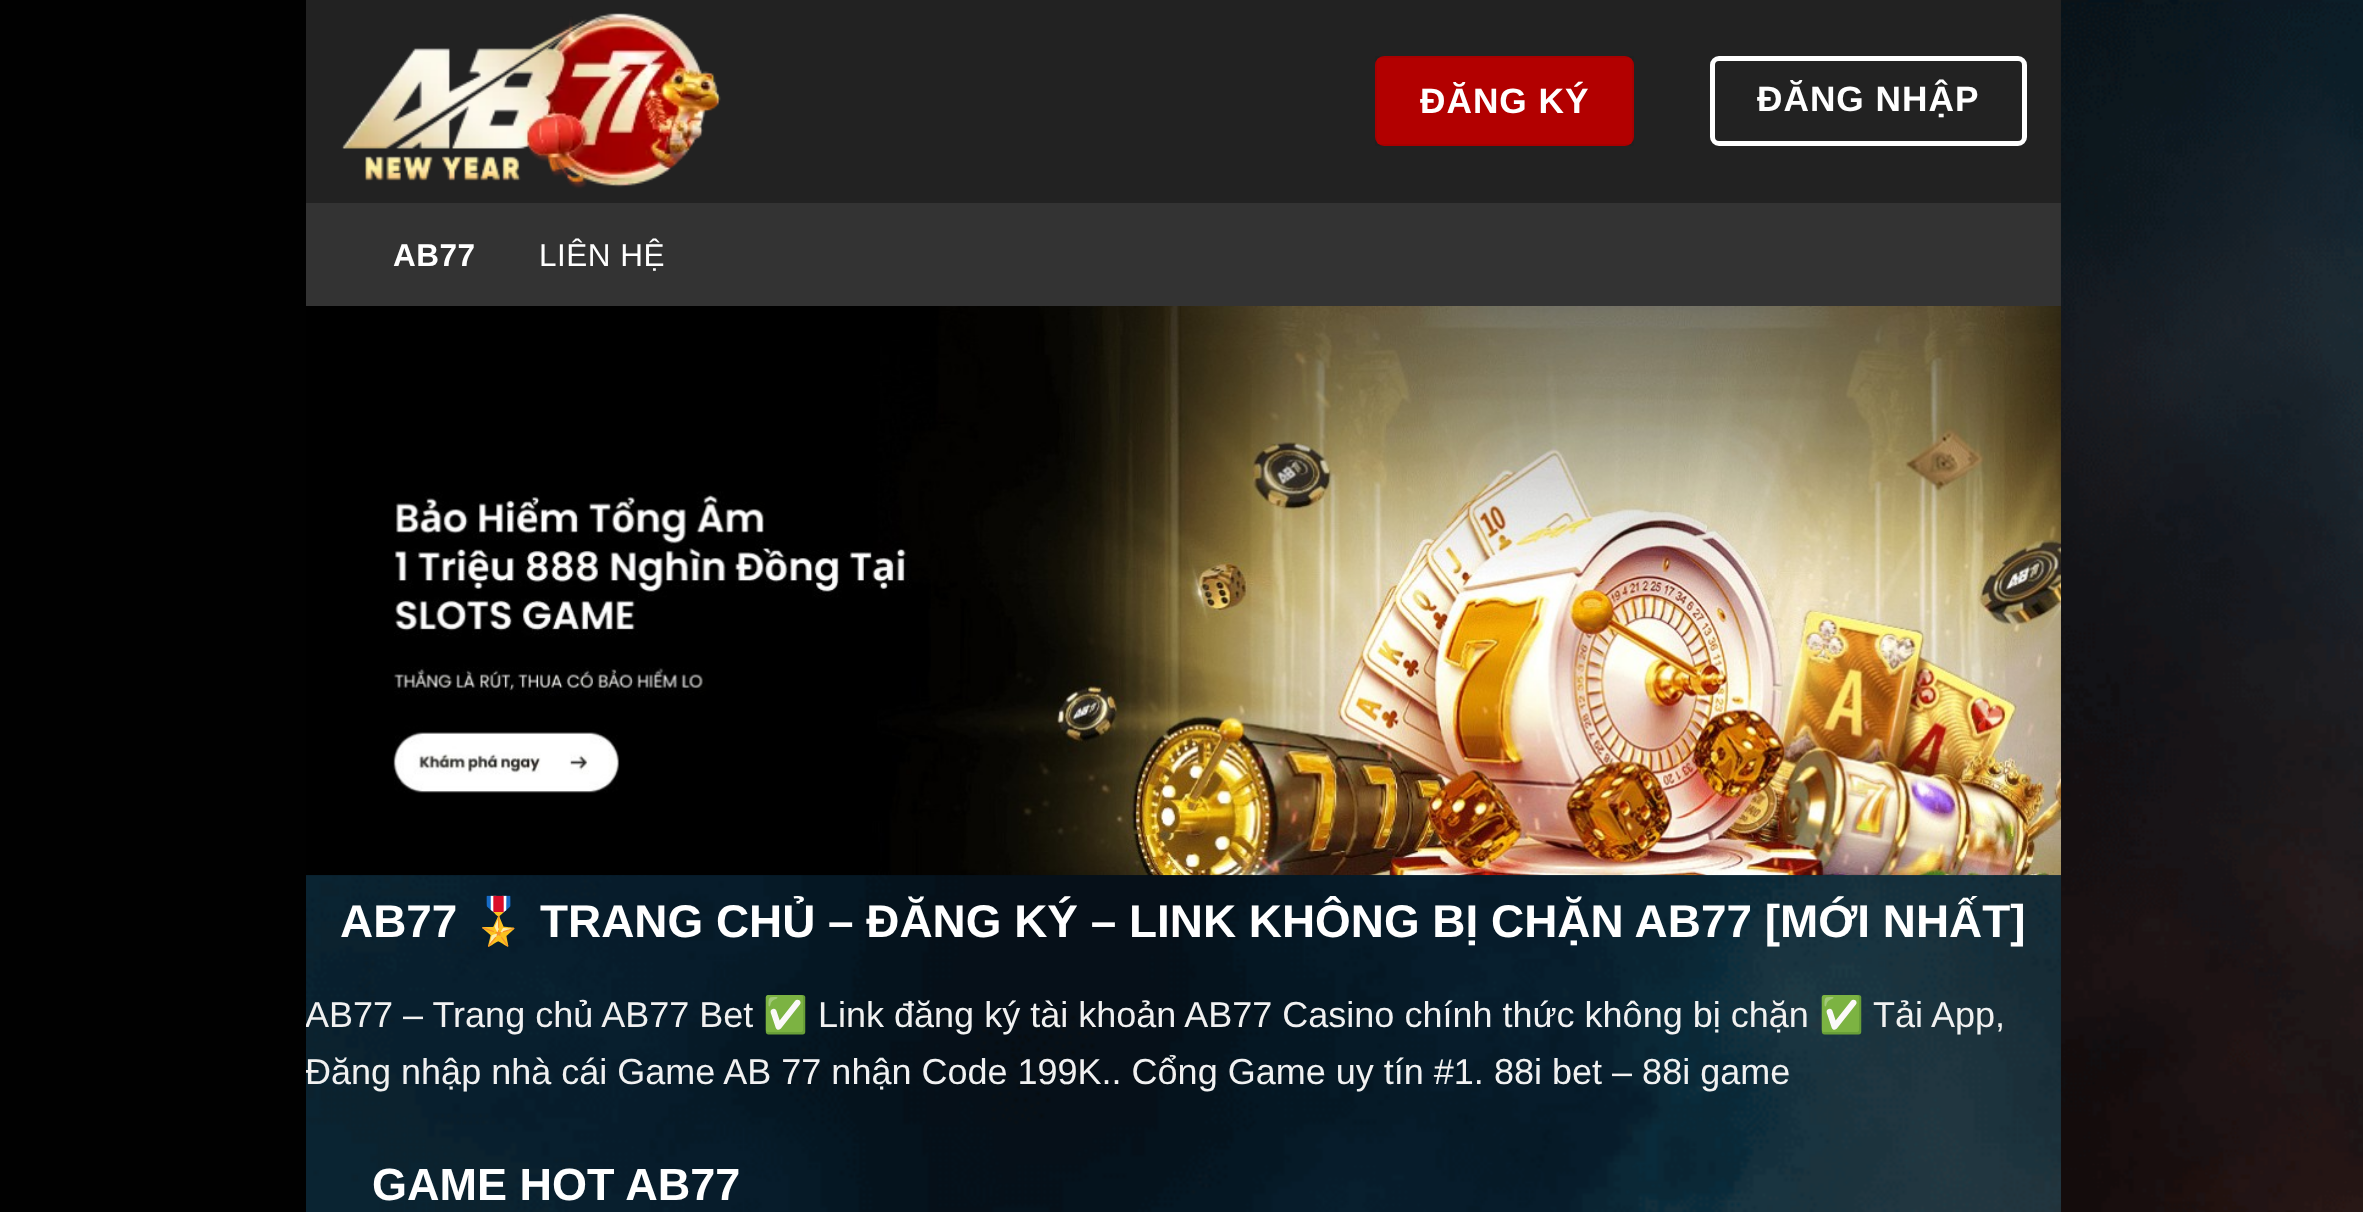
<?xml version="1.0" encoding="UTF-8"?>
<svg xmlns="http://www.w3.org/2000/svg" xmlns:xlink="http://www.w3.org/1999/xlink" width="2363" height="1212">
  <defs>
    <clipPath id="clip1"><rect x="306" y="306" width="1755" height="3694" /></clipPath>
  </defs>
  <rect width="100%" height="100%" fill="#ffffff" />
  <image x="0" y="0" width="2363" height="1212" xlink:href="image1.png" />
  <rect x="306" width="1755" height="203" fill="#222222" />
  <image x="341" y="13" width="380" height="176" xlink:href="image2.png" />
  <rect x="1375" y="56" width="259" height="90" rx="9" fill="#b20000" />
  <rect x="1376" y="57" width="257" height="88" fill="none" stroke="#000000" stroke-opacity="0.05" stroke-width="2" />
  <rect x="1712.5" y="58.5" width="312" height="85" rx="6.5" fill="none" stroke="#ffffff" stroke-width="5" />
  <rect x="306" y="203" width="1755" height="103" fill="#333333" />
  <image x="306" y="875" width="1755" height="337" xlink:href="image3.png" />
  <image x="306" y="306" width="1755" height="570" xlink:href="image4.png" />
  <text x="1420" y="113" style="font-family: Liberation Sans; font-size: 35.25px; font-weight: bold; letter-spacing: 1px; fill: #ffffff">ĐĂNG KÝ</text>
  <text x="1757" y="111" style="font-family: Liberation Sans; font-size: 35.25px; font-weight: bold; letter-spacing: 1px; fill: #ffffff">ĐĂNG NHẬP</text>
  <text x="393" y="266" style="font-family: Liberation Sans; font-size: 31.5px; font-weight: bold; letter-spacing: 0.5px; fill: #ffffff">AB77</text>
  <text x="539" y="266" style="font-family: Liberation Sans; font-size: 31.5px; letter-spacing: 0.5px; fill: #ffffff">LIÊN HỆ</text>
  <text x="340" y="937" style="font-family: Liberation Sans; font-size: 45.9px; font-weight: bold; fill: #ffffff">AB77</text>
  <text x="470" y="937" style="font-family: Noto Color Emoji; font-size: 45.9px; font-weight: bold; fill: #ffffff">🎖️</text>
  <text x="540" y="937" style="font-family: Liberation Sans; font-size: 45.9px; font-weight: bold; fill: #ffffff">TRANG CHỦ – ĐĂNG KÝ – LINK KHÔNG BỊ CHẶN AB77 [MỚI NHẤT]</text>
  <g clip-path="url(#clip1)">
    <text x="305" y="1027" style="font-family: Liberation Sans; font-size: 36px; fill: #f1f1f1">AB77 – Trang chủ AB77 Bet</text>
  </g>
  <text x="763" y="1027" style="font-family: Noto Color Emoji; font-size: 36px; fill: #f1f1f1">✅</text>
  <text x="818" y="1027" style="font-family: Liberation Sans; font-size: 36px; fill: #f1f1f1">Link đăng ký tài khoản AB77 Casino chính thức không bị chặn</text>
  <text x="1819" y="1027" style="font-family: Noto Color Emoji; font-size: 36px; fill: #f1f1f1">✅</text>
  <text x="1873" y="1027" style="font-family: Liberation Sans; font-size: 36px; fill: #f1f1f1">Tải App,</text>
  <g clip-path="url(#clip1)">
    <text x="305" y="1084" style="font-family: Liberation Sans; font-size: 36px; fill: #f1f1f1">Đăng nhập nhà cái Game AB 77 nhận Code 199K.. Cổng Game uy tín #1.</text>
  </g>
  <text x="1494" y="1084" style="font-family: Liberation Sans; font-size: 36px; fill: #f1f1f1">88i bet – 88i game</text>
  <text x="372" y="1200" style="font-family: Liberation Sans; font-size: 45px; font-weight: bold; fill: #ffffff">GAME HOT AB77</text>
</svg>
